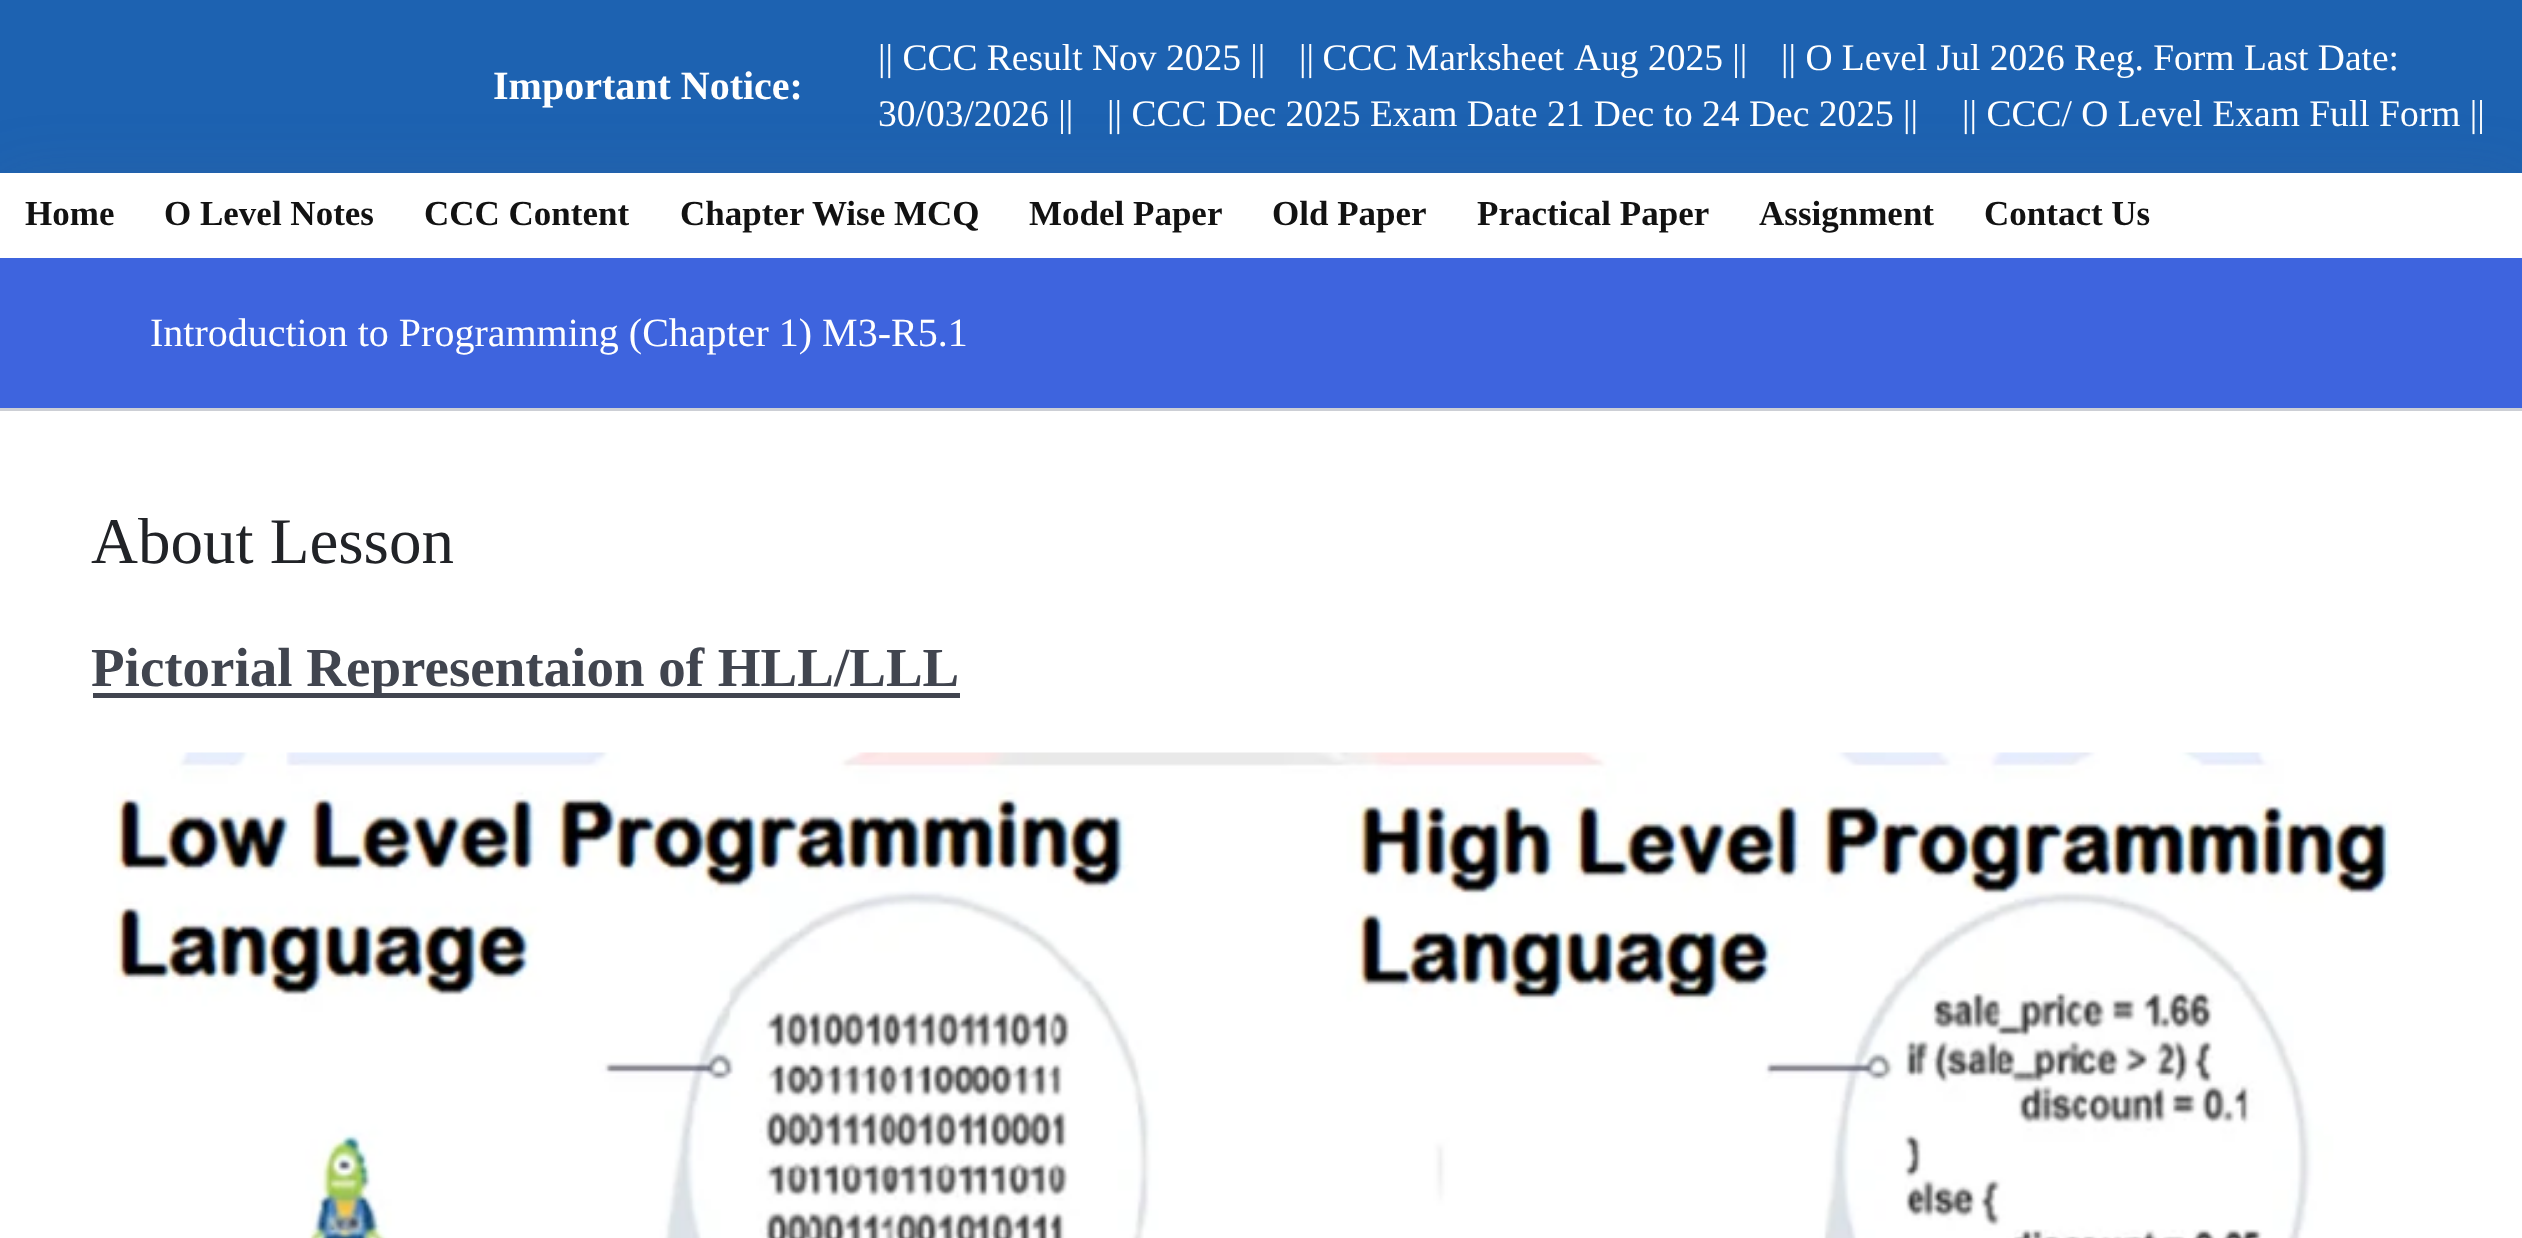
<?xml version="1.0" encoding="UTF-8"?>
<svg xmlns="http://www.w3.org/2000/svg" xmlns:xlink="http://www.w3.org/1999/xlink" width="2522" height="1238">
  <defs>
    <clipPath id="clip1"><path d="M 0 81 h 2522 v 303 h -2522 z m 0 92 h 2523 v 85 h -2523 z" clip-rule="evenodd" /></clipPath>
  </defs>
  <rect width="100%" height="100%" fill="#ffffff" />
  <rect width="2522" height="173" fill="#1d62b1" />
  <g clip-path="url(#clip1)">
    <rect y="190" width="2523" height="85" fill="#64646f" fill-opacity="0.2" filter="blur(36px)" />
  </g>
  <rect y="258" width="2522" height="150" fill="#3e64de" />
  <rect y="408" width="2522" height="3" fill="#cdcfd5" />
  <rect x="93" y="693" width="867" height="5" fill="#41454f" />
  <image x="113" y="752" width="2279" height="486" xlink:href="image1.png" />
  <text x="493" y="99" style="font-family: Liberation Serif; font-size: 40px; font-weight: bold; fill: #ffffff">Important Notice:</text>
  <text x="878" y="70" style="font-family: Liberation Serif; font-size: 37.5px; fill: #ffffff">|| CCC Result Nov 2025 ||</text>
  <text x="1299" y="70" word-spacing="-1" style="font-family: Liberation Serif; font-size: 37.5px; fill: #ffffff">|| CCC Marksheet</text>
  <text x="1574" y="70" style="font-family: Liberation Serif; font-size: 37.5px; fill: #ffffff">Aug 2025 ||</text>
  <text x="1781" y="70" style="font-family: Liberation Serif; font-size: 37.5px; fill: #ffffff">|| O Level Jul 2026 Reg. Form Last Date:</text>
  <text x="878" y="126" style="font-family: Liberation Serif; font-size: 37.5px; fill: #ffffff">30/03/2026 ||</text>
  <text x="1107" y="126" style="font-family: Liberation Serif; font-size: 37.5px; fill: #ffffff">|| CCC Dec 2025 Exam Date 21 Dec to 24 Dec 2025 ||</text>
  <text x="1962" y="126" style="font-family: Liberation Serif; font-size: 37.5px; fill: #ffffff">|| CCC/ O Level Exam Full Form ||</text>
  <text x="25" y="225" style="font-family: Liberation Serif; font-size: 35px; font-weight: bold; fill: #121212">Home</text>
  <text x="164" y="225" style="font-family: Liberation Serif; font-size: 35px; font-weight: bold; fill: #121212">O Level Notes</text>
  <text x="424" y="225" style="font-family: Liberation Serif; font-size: 35px; font-weight: bold; fill: #121212">CCC Content</text>
  <text x="680" y="225" style="font-family: Liberation Serif; font-size: 35px; font-weight: bold; fill: #121212">Chapter Wise MCQ</text>
  <text x="1029" y="225" style="font-family: Liberation Serif; font-size: 35px; font-weight: bold; fill: #121212">Model Paper</text>
  <text x="1272" y="225" style="font-family: Liberation Serif; font-size: 35px; font-weight: bold; fill: #121212">Old Paper</text>
  <text x="1477" y="225" style="font-family: Liberation Serif; font-size: 35px; font-weight: bold; fill: #121212">Practical Paper</text>
  <text x="1759" y="225" style="font-family: Liberation Serif; font-size: 35px; font-weight: bold; fill: #121212">Assignment</text>
  <text x="1984" y="225" style="font-family: Liberation Serif; font-size: 35px; font-weight: bold; fill: #121212">Contact Us</text>
  <text x="150" y="346" style="font-family: Liberation Serif; font-size: 40px; fill: #ffffff">Introduction to Programming (Chapter 1) M3-R5.1</text>
  <text x="91" y="563" style="font-family: Liberation Serif; font-size: 65px; fill: #212327">About Lesson</text>
  <text x="91" y="686" style="font-family: Liberation Serif; font-size: 55px; font-weight: bold; fill: #41454f">Pictorial Representaion of HLL/LLL</text>
</svg>
